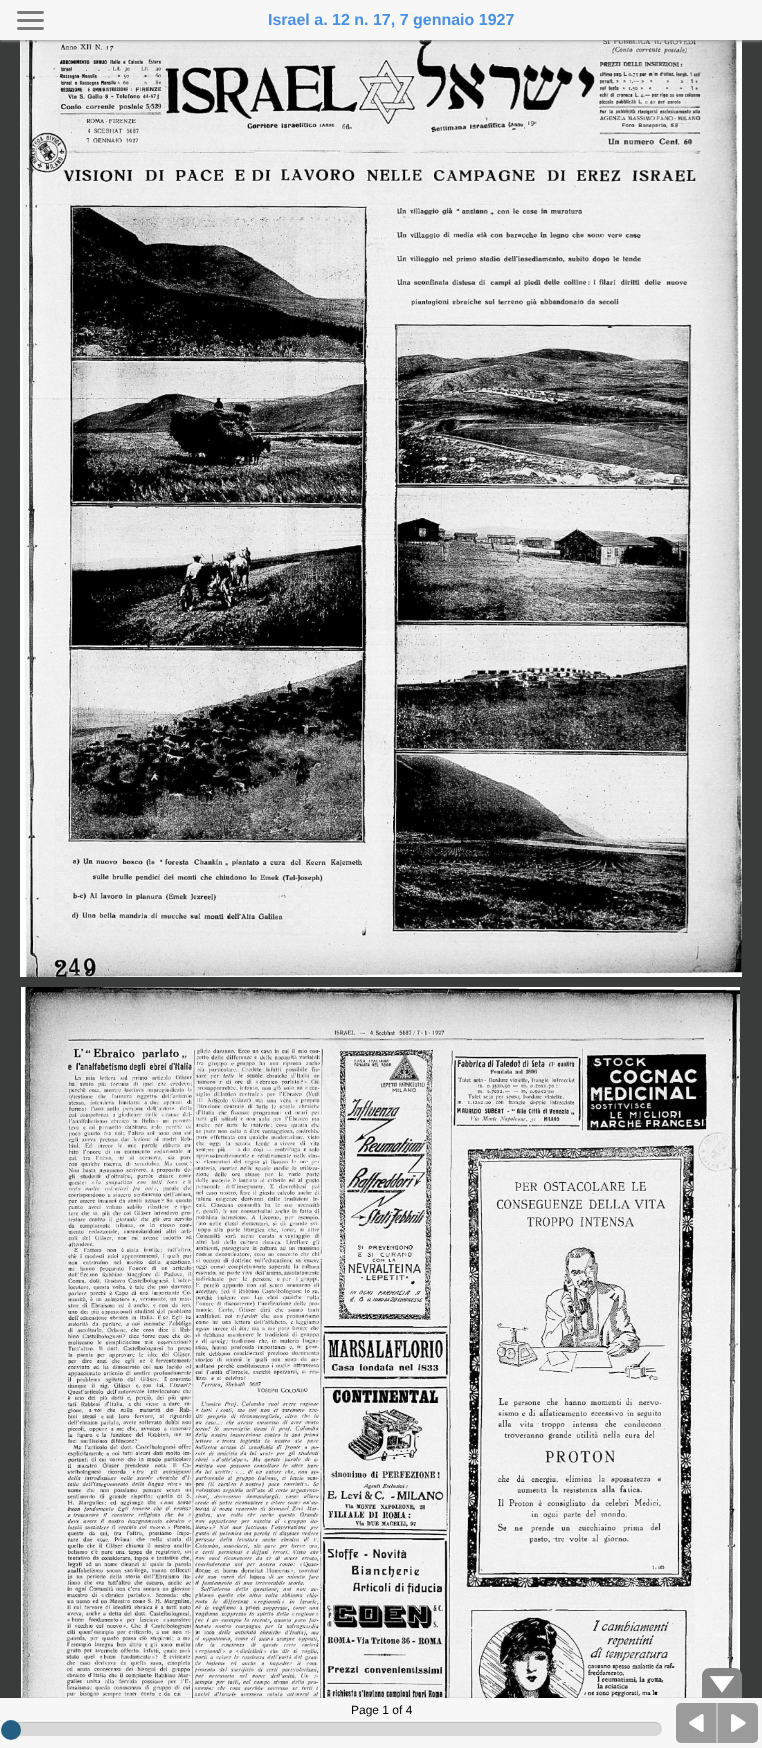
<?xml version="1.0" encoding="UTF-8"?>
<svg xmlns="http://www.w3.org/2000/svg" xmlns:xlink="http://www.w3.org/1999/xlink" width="762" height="1748">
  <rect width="100%" height="100%" fill="#3a3b3b" />
  <image x="20" y="40" width="722" height="937" xlink:href="image2.png" />
  <rect y="1" width="762" height="40" fill="#999999" filter="blur(1.5px)" />
  <rect width="762" height="40" fill="#f7f7f7" />
  <image x="17" y="11" width="27" height="19" xlink:href="image1.png" />
  <image x="21" y="987" width="719" height="711" xlink:href="image3.png" />
  <rect x="1" y="1699" width="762" height="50" fill="#333333" filter="blur(1px)" />
  <rect y="1698" width="762" height="50" fill="#f7f7f7" />
  <path d="M 710 1668 h 24 c 4.5 0 8 3.5 8 8 v 22 h -40 v -22 c 0 -4.5 3.5 -8 8 -8 z" fill="#868686" />
  <image x="710" y="1676" width="24" height="17" xlink:href="image4.png" />
  <image x="676" y="1703" width="40" height="40" xlink:href="image5.png" />
  <rect x="716" y="1703" width="2" height="40" fill="#c1c1c1" />
  <image x="718" y="1703" width="40" height="40" xlink:href="image6.png" />
  <rect x="10" y="1722" width="652" height="14" rx="7" fill="#d8d8d8" />
  <path d="M 17 1723 h 638 c 4 0 7 3 7 6 c 0 -4 -3 -7 -7 -7 h -638 c -2 0 -4 1 -5 2 l -1 2 l -1 3 c 0 -3 3 -6 7 -6 z" fill="#9b9a9b" fill-opacity="0.39" />
  <circle cx="11" cy="1730" r="10" fill="#245e83" />
  <text x="268" y="25" style="font-family: Liberation Sans; font-size: 16px; font-weight: bold; fill: #4a90e2">Israel a. 12 n. 17, 7 gennaio 1927</text>
  <text x="351" y="1714" style="font-family: Liberation Sans; font-size: 12px; fill: #000000">Page 1 of 4</text>
</svg>
